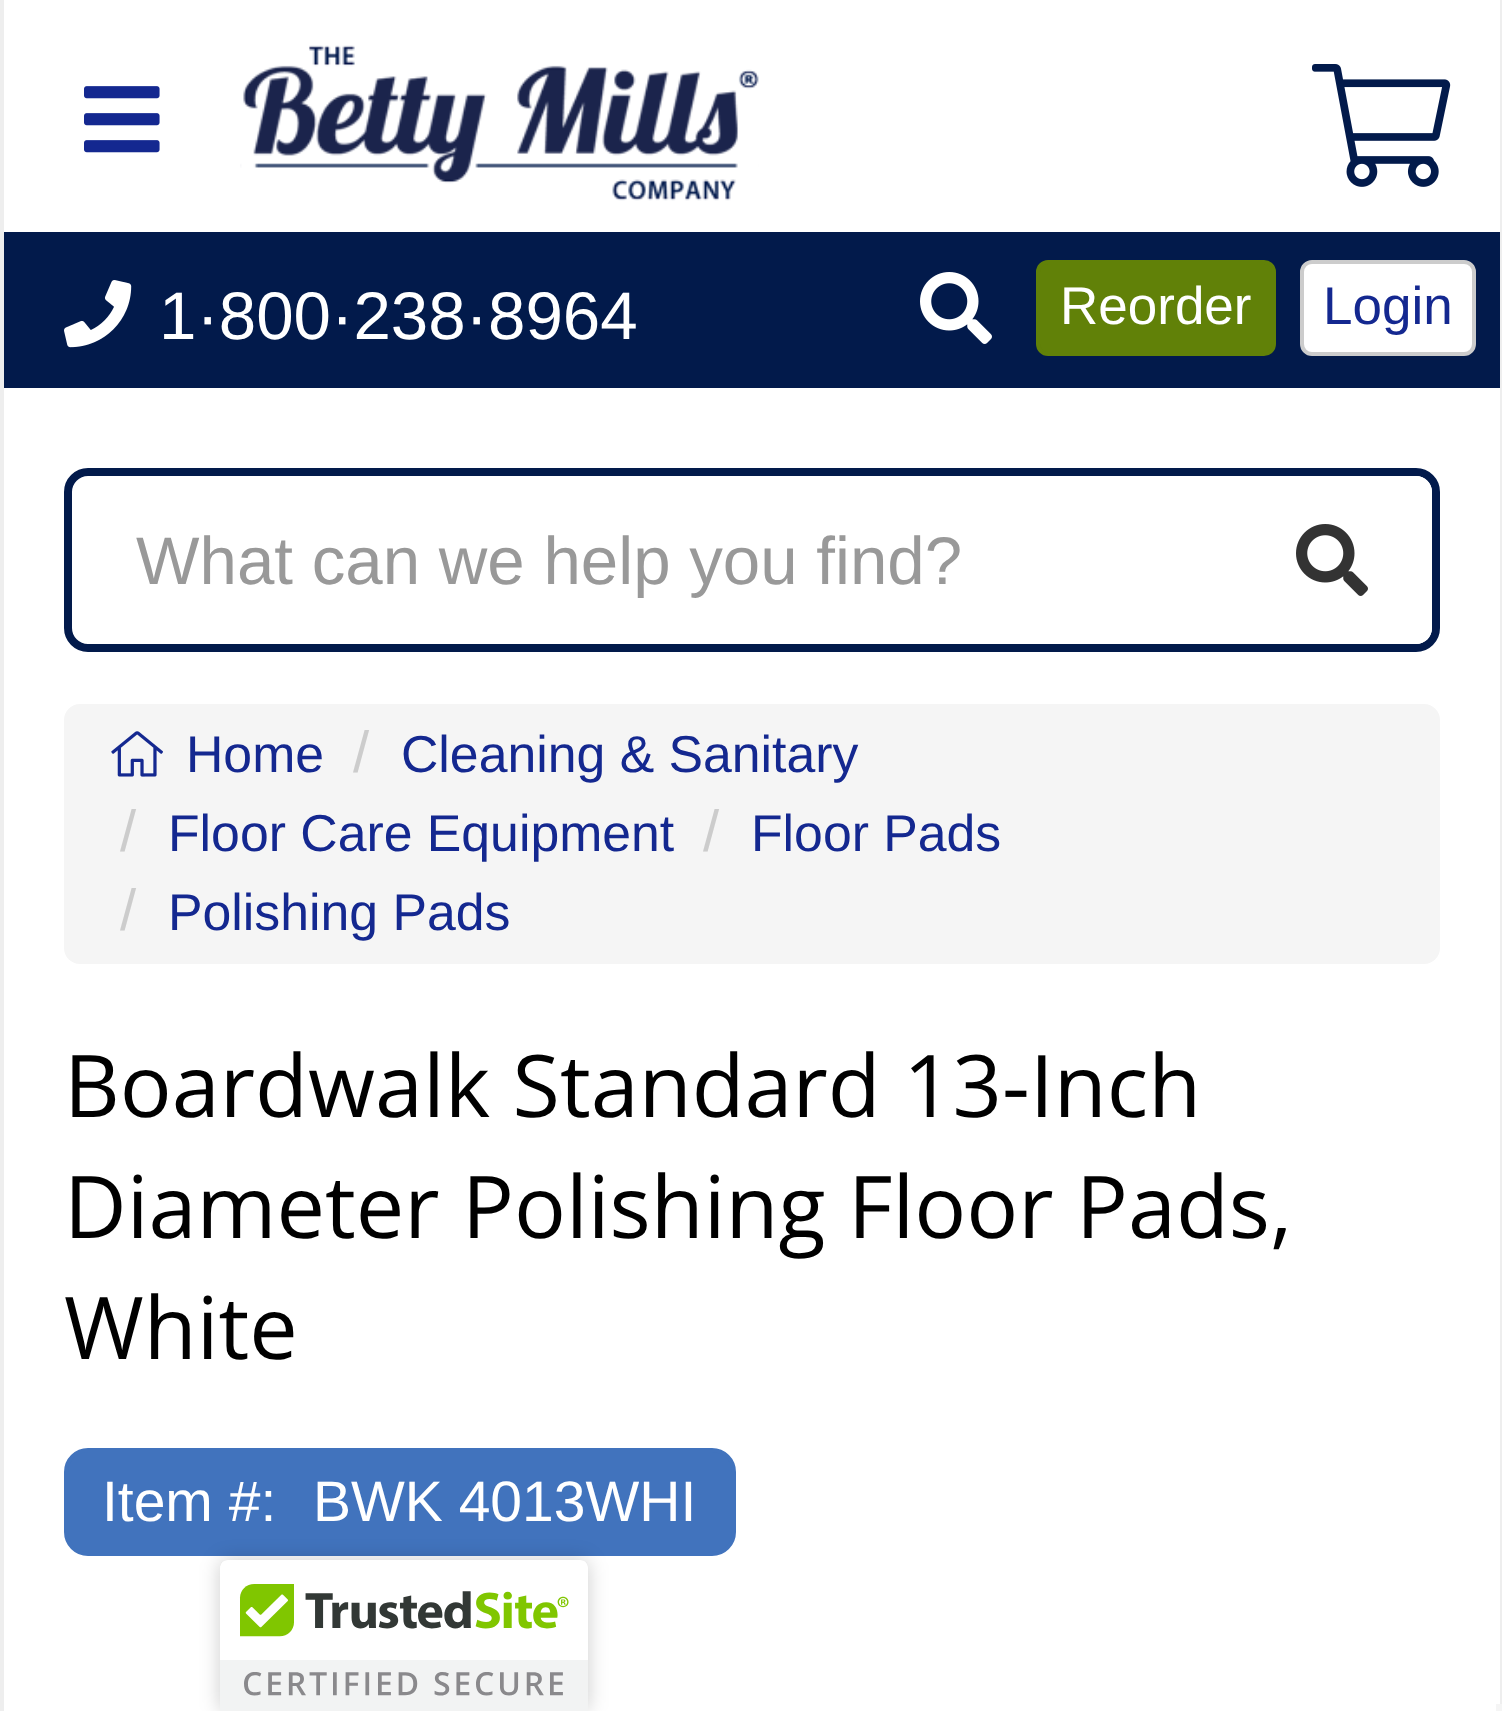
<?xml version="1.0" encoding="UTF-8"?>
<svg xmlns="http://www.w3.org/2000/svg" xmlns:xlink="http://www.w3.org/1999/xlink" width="1502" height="1711">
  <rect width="100%" height="100%" fill="#ffffff" />
  <rect x="1500" width="2" height="1711" fill="#eeeeee" />
  <rect width="4" height="1711" fill="#eeeeee" />
  <image x="84" y="86" width="76" height="67" xlink:href="image1.png" />
  <image x="240" y="45" width="519" height="156" xlink:href="image2.png" />
  <image x="1312" y="64" width="139" height="123" xlink:href="image3.png" />
  <rect x="4" y="232" width="1496" height="156" fill="#021a4b" />
  <image x="64" y="280" width="68" height="68" xlink:href="image4.png" />
  <image x="920" y="272" width="72" height="72" xlink:href="image5.png" />
  <rect x="1038" y="262" width="236" height="92" rx="10" fill="#618108" stroke="#618108" stroke-width="4" />
  <rect x="1302" y="262" width="172" height="92" rx="10" fill="#ffffff" stroke="#cccccc" stroke-width="4" />
  <rect x="68" y="472" width="1368" height="176" rx="20" fill="none" stroke="#021a4b" stroke-width="8" />
  <path d="M 1232 476 h 184 c 9 0 16 7 16 16 v 136 c 0 9 -7 16 -16 16 h -184 z" fill="#ffffff" />
  <image x="1296" y="524" width="72" height="72" xlink:href="image6.png" />
  <rect x="64" y="704" width="1376" height="260" rx="16" fill="#f5f5f5" />
  <image x="111" y="731" width="52" height="46" xlink:href="image7.png" />
  <rect x="66" y="1450" width="668" height="104" rx="22" fill="#4173bd" stroke="#4173bd" stroke-width="4" />
  <rect x="220" y="1560" width="368" height="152" rx="8" fill="#000000" fill-opacity="0.2" filter="blur(10px)" />
  <path d="M 228 1560 h 352 c 4.5 0 8 3.5 8 8 v 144 h -368 v -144 c 0 -4.5 3.5 -8 8 -8 z" fill="#ffffff" />
  <image x="220" y="1560" width="368" height="151" xlink:href="image8.png" />
  <rect x="1496" y="1704" width="6" height="7" fill="#f5f5f5" />
  <text x="159" y="339" style="font-family: Liberation Sans; font-size: 67.25px; fill: #ffffff">1·800·238·8964</text>
  <text x="1060" y="324" style="font-family: Liberation Sans; font-size: 53px; fill: #ffffff">Reorder</text>
  <text x="1323" y="324" style="font-family: Liberation Sans; font-size: 53px; fill: #142890">Login</text>
  <text x="136" y="584" style="font-family: Liberation Sans; font-size: 67.25px; fill: #999999">What can we help you find?</text>
  <text x="186" y="772" style="font-family: Liberation Sans; font-size: 51.75px; fill: #142890">Home</text>
  <text x="353" y="772" style="font-family: Liberation Sans; font-size: 58px; fill: #cccccc">/</text>
  <text x="401" y="772" style="font-family: Liberation Sans; font-size: 51.75px; fill: #142890">Cleaning &amp; Sanitary</text>
  <text x="120" y="851" style="font-family: Liberation Sans; font-size: 58px; fill: #cccccc">/</text>
  <text x="168" y="851" style="font-family: Liberation Sans; font-size: 51.75px; fill: #142890">Floor Care Equipment</text>
  <text x="703" y="851" style="font-family: Liberation Sans; font-size: 58px; fill: #cccccc">/</text>
  <text x="751" y="851" style="font-family: Liberation Sans; font-size: 51.75px; fill: #142890">Floor Pads</text>
  <text x="120" y="930" style="font-family: Liberation Sans; font-size: 58px; fill: #cccccc">/</text>
  <text x="168" y="930" style="font-family: Liberation Sans; font-size: 51.75px; fill: #142890">Polishing Pads</text>
  <text x="64" y="1117" style="font-family: Open Sans; font-size: 86.4px; fill: #000000">Boardwalk Standard 13-Inch</text>
  <text x="64" y="1238" style="font-family: Open Sans; font-size: 86.4px; fill: #000000">Diameter Polishing Floor Pads,</text>
  <text x="64" y="1359" style="font-family: Open Sans; font-size: 86.4px; fill: #000000">White</text>
  <text x="102" y="1521" style="font-family: Liberation Sans; font-size: 57px; fill: #ffffff">Item #:</text>
  <text x="313" y="1521" style="font-family: Liberation Sans; font-size: 57px; fill: #ffffff">BWK 4013WHI</text>
</svg>
